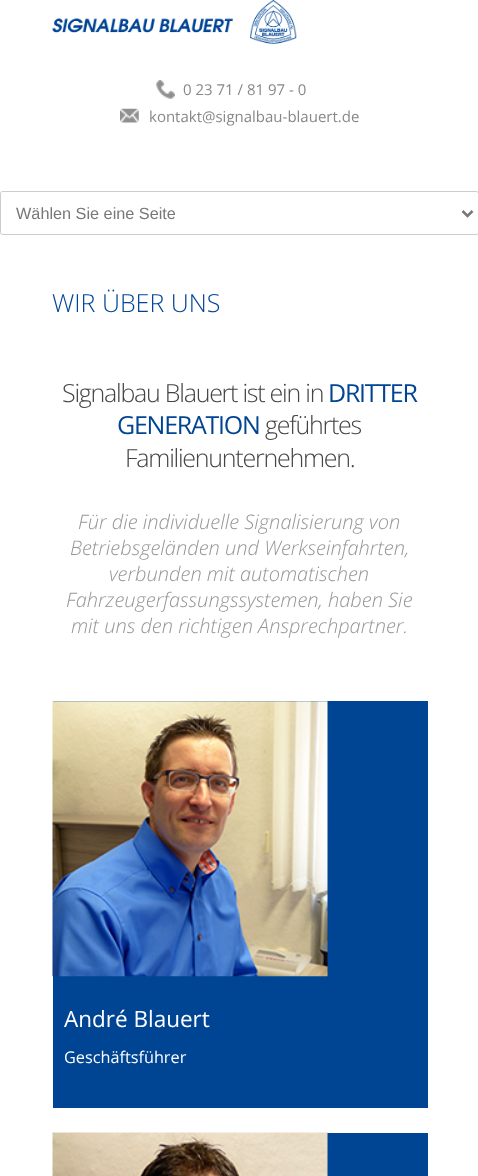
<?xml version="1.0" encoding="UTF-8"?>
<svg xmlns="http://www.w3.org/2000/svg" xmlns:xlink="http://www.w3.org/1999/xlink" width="478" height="1176">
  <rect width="100%" height="100%" fill="#ffffff" />
  <image x="52" y="0" width="245" height="44" xlink:href="image1.png" />
  <image x="156" y="80" width="19" height="19" xlink:href="image2.png" />
  <image x="120" y="108" width="19" height="15" xlink:href="image3.png" />
  <rect x="0.5" y="191.5" width="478" height="43" rx="2" fill="none" stroke="#cccccc" />
  <path d="M 462.5 211 l 5 5 l 5 -5" fill="none" stroke="#777777" stroke-width="2.5" />
  <rect x="53" y="701" width="375" height="407" fill="#004494" />
  <image x="52" y="701" width="276" height="276" xlink:href="image4.png" />
  <rect x="327" y="1133" width="101" height="43" fill="#004494" />
  <image x="52" y="1132" width="276" height="44" xlink:href="image5.png" />
  <text x="183" y="95" style="font-family: Open Sans; font-size: 15px; fill: #888888">0 23 71 / 81 97 - 0</text>
  <text x="149" y="122" style="font-family: Open Sans; font-size: 15px; fill: #888888">kontakt@signalbau-blauert.de</text>
  <text x="16" y="219" style="font-family: Liberation Sans; font-size: 16.25px; fill: #777777">Wählen Sie eine Seite</text>
  <text x="52" y="312" style="font-family: Open Sans; font-size: 25px; font-weight: 300; fill: #004494">WIR ÜBER UNS</text>
  <text x="62" y="402" style="font-family: Open Sans; font-size: 25px; font-weight: 300; letter-spacing: -1.25px; fill: #444444">Signalbau Blauert ist ein in</text>
  <text x="328" y="402" style="font-family: Open Sans; font-size: 25px; letter-spacing: -1.25px; fill: #004494">DRITTER</text>
  <text x="117" y="434" style="font-family: Open Sans; font-size: 25px; letter-spacing: -1.25px; fill: #004494">GENERATION</text>
  <text x="265" y="434" style="font-family: Open Sans; font-size: 25px; font-weight: 300; letter-spacing: -1.25px; fill: #444444">geführtes</text>
  <text x="125" y="467" style="font-family: Open Sans; font-size: 25px; font-weight: 300; letter-spacing: -1.25px; fill: #444444">Familienunternehmen.</text>
  <text x="78" y="529" style="font-family: Open Sans; font-size: 20px; font-weight: 300; font-style: italic; fill: #969696">Für die individuelle Signalisierung von</text>
  <text x="70" y="555" style="font-family: Open Sans; font-size: 20px; font-weight: 300; font-style: italic; fill: #969696">Betriebsgeländen und Werkseinfahrten,</text>
  <text x="109" y="581" style="font-family: Open Sans; font-size: 20px; font-weight: 300; font-style: italic; fill: #969696">verbunden mit automatischen</text>
  <text x="66" y="607" style="font-family: Open Sans; font-size: 20px; font-weight: 300; font-style: italic; fill: #969696">Fahrzeugerfassungssystemen, haben Sie</text>
  <text x="71" y="633" style="font-family: Open Sans; font-size: 20px; font-weight: 300; font-style: italic; fill: #969696">mit uns den richtigen Ansprechpartner.</text>
  <text x="64" y="1027" style="font-family: Open Sans; font-size: 22.5px; fill: #ffffff">André Blauert</text>
  <text x="64" y="1063" style="font-family: Open Sans; font-size: 16.25px; fill: #ffffff">Geschäftsführer</text>
</svg>
